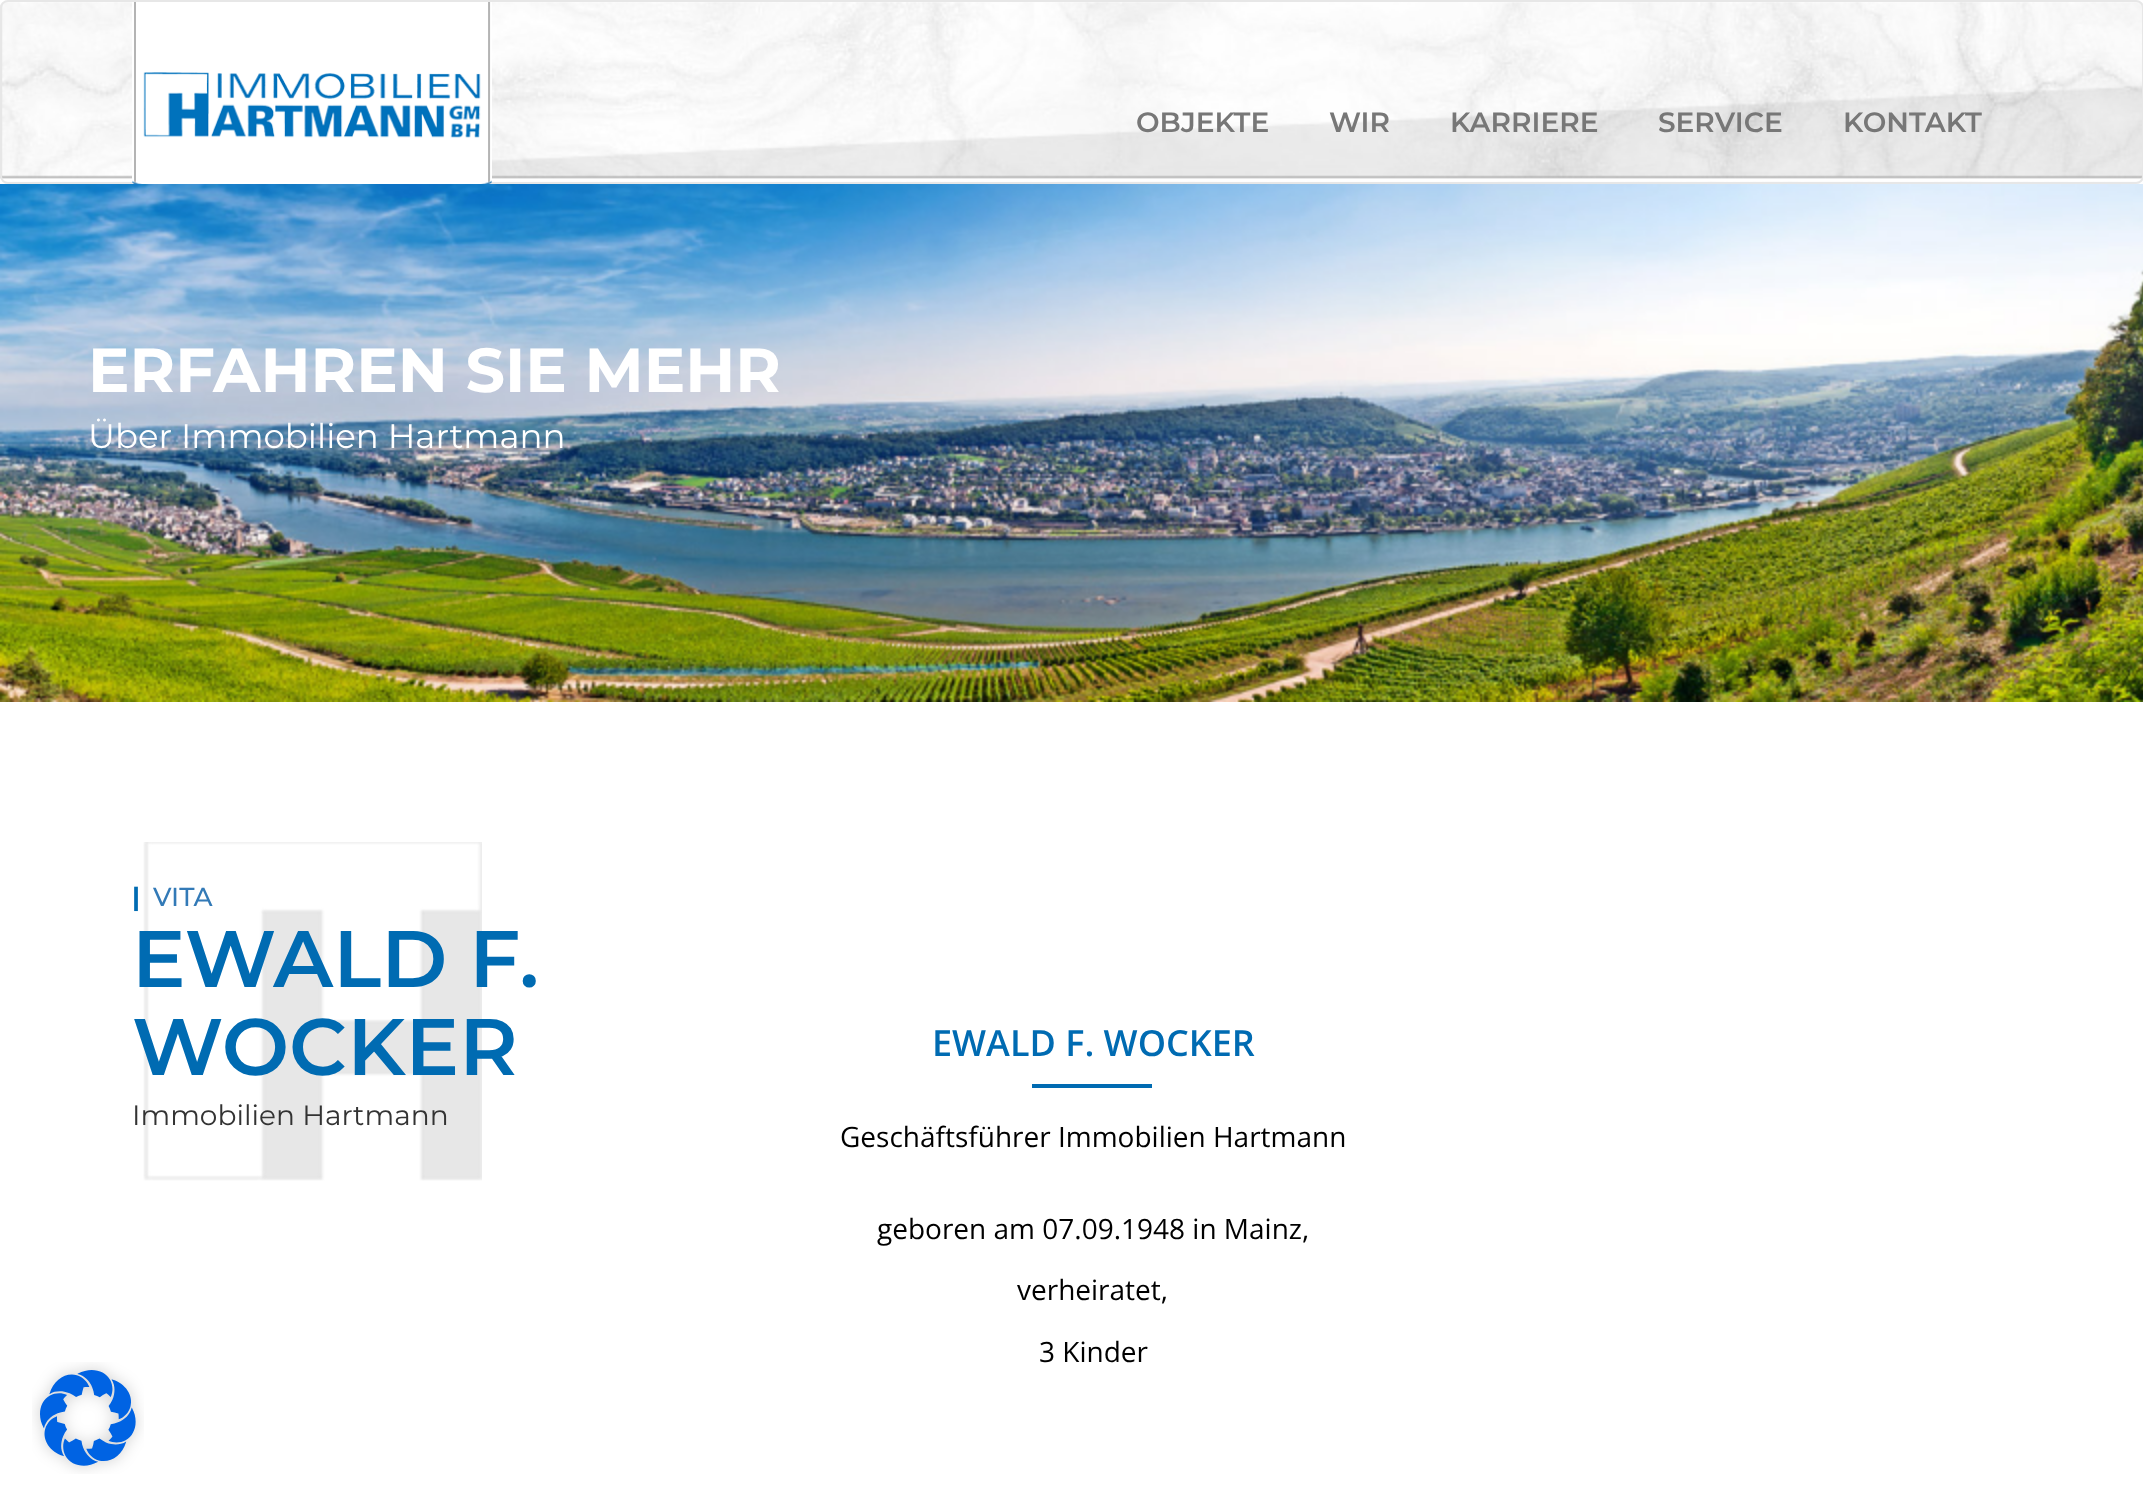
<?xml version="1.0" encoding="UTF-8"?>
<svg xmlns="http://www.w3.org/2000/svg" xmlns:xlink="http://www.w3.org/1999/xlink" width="2143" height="1506">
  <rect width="100%" height="100%" fill="#ffffff" />
  <image x="0" y="0" width="2143" height="184" xlink:href="image1.png" />
  <rect x="1" y="1" width="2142" height="182" rx="7" fill="none" stroke="#e7e7e7" stroke-width="2" />
  <image x="132" y="2" width="360" height="182" xlink:href="image2.png" />
  <image x="0" y="184" width="2143" height="518" xlink:href="image3.png" />
  <image x="143" y="842" width="339" height="339" xlink:href="image4.png" />
  <rect x="1032" y="1084" width="120" height="4" fill="#006bb2" />
  <image x="32" y="1362" width="112" height="112" xlink:href="image5.png" />
  <text x="1136" y="132" style="font-family: Montserrat; font-size: 28px; font-weight: 600; fill: #777777">OBJEKTE</text>
  <text x="1329" y="132" style="font-family: Montserrat; font-size: 28px; font-weight: 600; fill: #777777">WIR</text>
  <text x="1450" y="132" style="font-family: Montserrat; font-size: 28px; font-weight: 600; fill: #777777">KARRIERE</text>
  <text x="1658" y="132" style="font-family: Montserrat; font-size: 28px; font-weight: 600; fill: #777777">SERVICE</text>
  <text x="1843" y="132" style="font-family: Montserrat; font-size: 28px; font-weight: 600; fill: #777777">KONTAKT</text>
  <text x="88" y="392" style="font-family: Montserrat; font-size: 62px; font-weight: bold; fill: #ffffff">ERFAHREN SIE MEHR</text>
  <text x="88" y="448" style="font-family: Montserrat; font-size: 34px; fill: #ffffff">Über Immobilien Hartmann</text>
  <text x="132" y="906" style="font-family: Montserrat; font-size: 26px; font-weight: bold; fill: #006bb2">|</text>
  <text x="153" y="906" style="font-family: Montserrat; font-size: 26px; font-weight: 500; fill: #337ab7">VITA</text>
  <text x="132" y="987" style="font-family: Montserrat; font-size: 80px; font-weight: 600; fill: #006bb2">EWALD F.</text>
  <text x="132" y="1075" style="font-family: Montserrat; font-size: 80px; font-weight: 600; fill: #006bb2">WOCKER</text>
  <text x="132" y="1125" style="font-family: Montserrat; font-size: 28px; fill: #333333">Immobilien Hartmann</text>
  <text x="932" y="1056" style="font-family: Open Sans; font-size: 36px; font-weight: 600; fill: #006bb2">EWALD F. WOCKER</text>
  <text x="840" y="1147" style="font-family: Open Sans; font-size: 28px; fill: #000000">Geschäftsführer Immobilien Hartmann</text>
  <text x="877" y="1239" style="font-family: Open Sans; font-size: 28px; fill: #000000">geboren am 07.09.1948 in Mainz,</text>
  <text x="1017" y="1300" style="font-family: Open Sans; font-size: 28px; fill: #000000">verheiratet,</text>
  <text x="1039" y="1362" style="font-family: Open Sans; font-size: 28px; fill: #000000">3 Kinder</text>
</svg>
